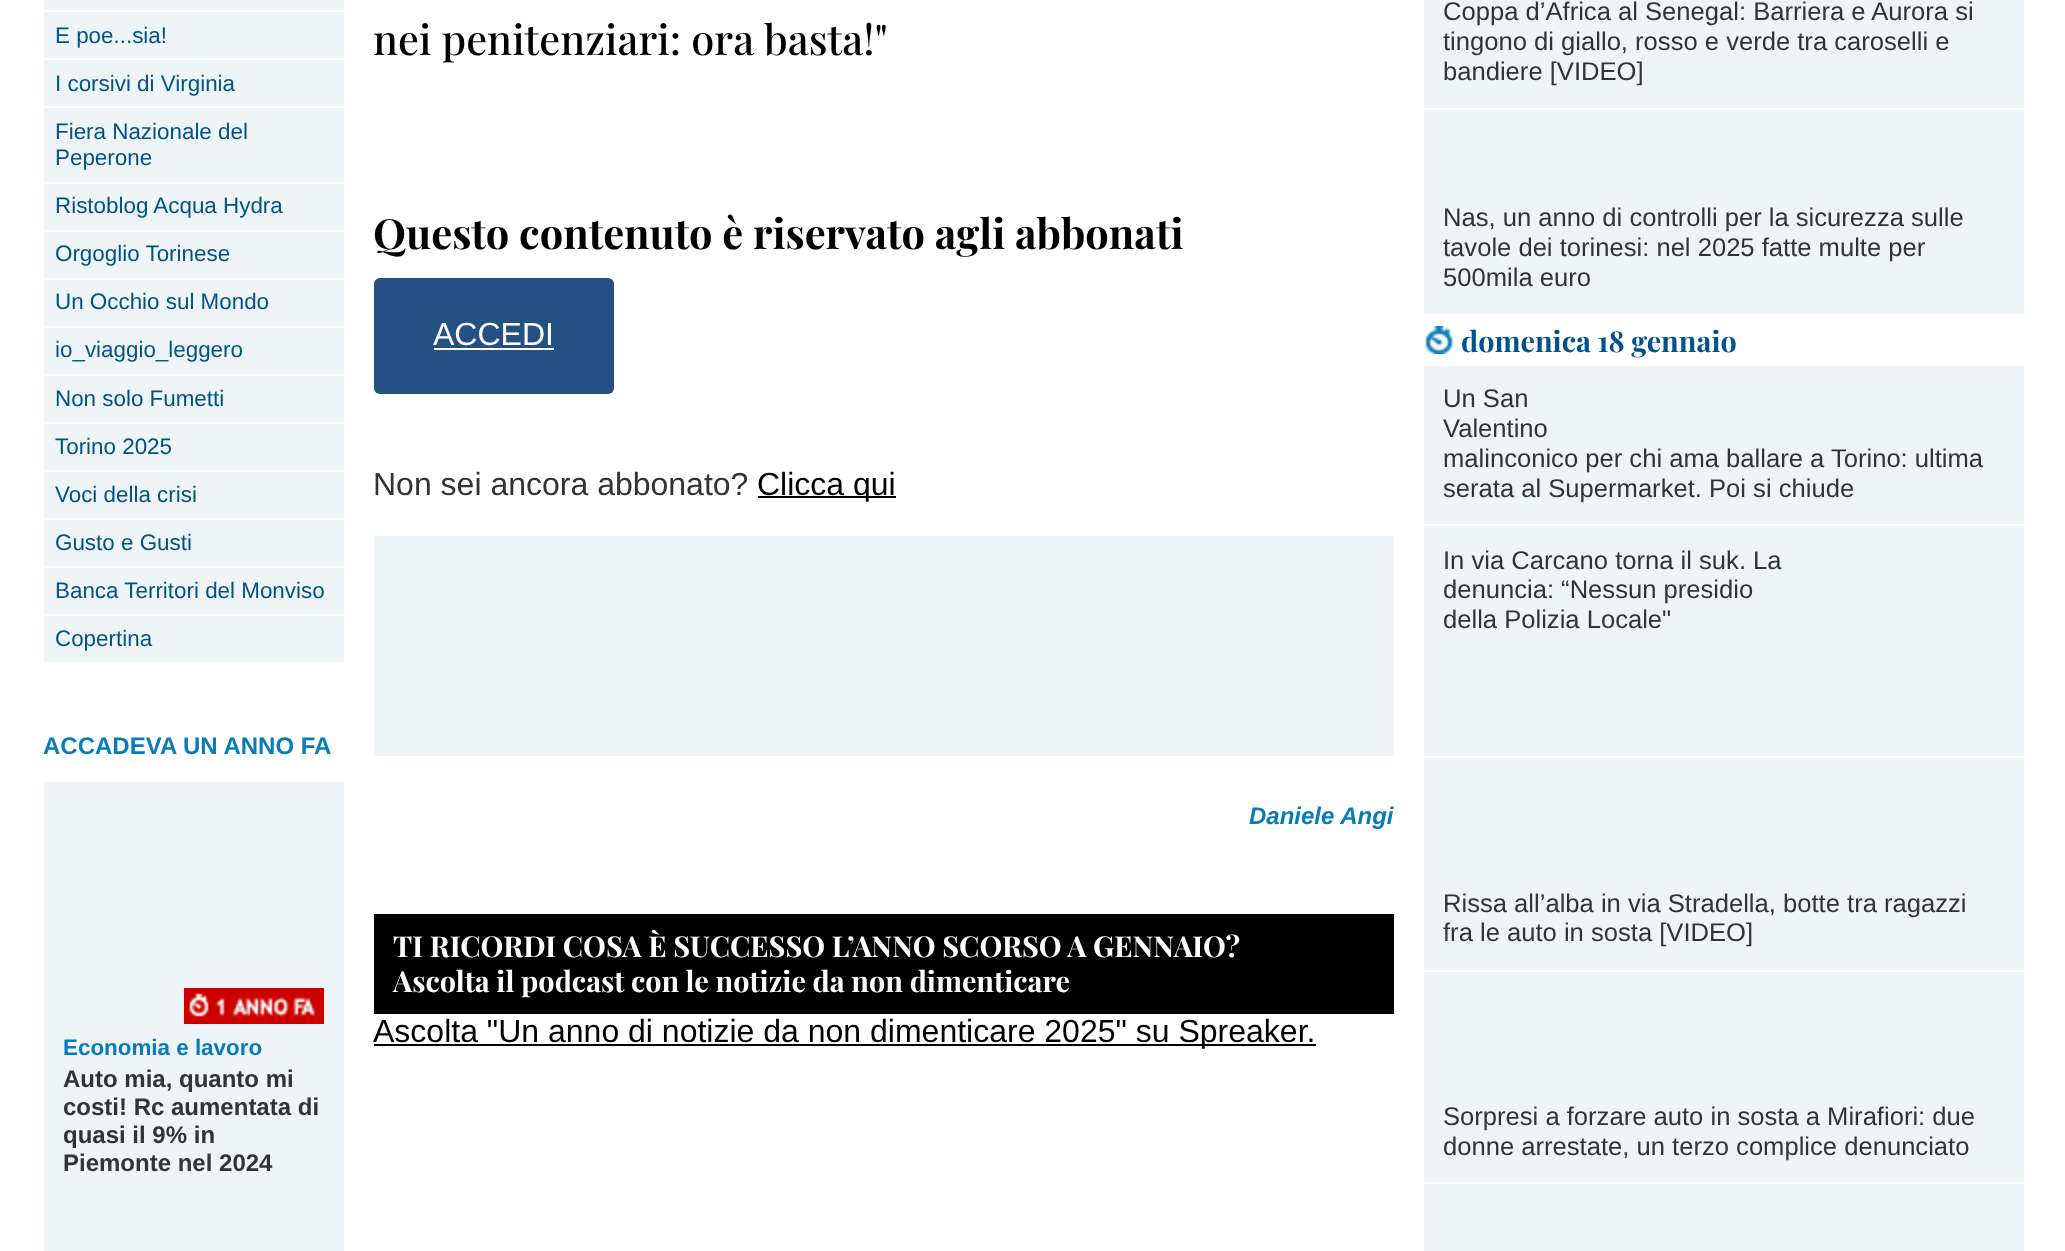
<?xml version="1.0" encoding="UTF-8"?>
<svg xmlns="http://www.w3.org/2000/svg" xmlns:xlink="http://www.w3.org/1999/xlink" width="2065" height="1251">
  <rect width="100%" height="100%" fill="#ffffff" />
  <rect x="44" width="300" height="10" fill="#eff4f7" />
  <rect x="44" y="12" width="300" height="46" fill="#eff4f7" />
  <rect x="44" y="60" width="300" height="46" fill="#eff4f7" />
  <rect x="44" y="108" width="300" height="74" fill="#eff4f7" />
  <rect x="44" y="184" width="300" height="46" fill="#eff4f7" />
  <rect x="44" y="232" width="300" height="46" fill="#eff4f7" />
  <rect x="44" y="280" width="300" height="46" fill="#eff4f7" />
  <rect x="44" y="328" width="300" height="46" fill="#eff4f7" />
  <rect x="44" y="376" width="300" height="46" fill="#eff4f7" />
  <rect x="44" y="424" width="300" height="46" fill="#eff4f7" />
  <rect x="44" y="472" width="300" height="46" fill="#eff4f7" />
  <rect x="44" y="520" width="300" height="46" fill="#eff4f7" />
  <rect x="44" y="568" width="300" height="46" fill="#eff4f7" />
  <rect x="44" y="616" width="300" height="46" fill="#eff4f7" />
  <rect x="44" y="782" width="300" height="469" fill="#eff4f7" />
  <image x="184" y="988" width="140" height="36" xlink:href="image1.png" />
  <rect x="374" y="278" width="240" height="116" rx="6" fill="#245083" />
  <rect x="434" y="348" width="120" height="2" fill="#ffffff" />
  <rect x="758" y="496" width="138" height="2" fill="#000000" />
  <rect x="374" y="536" width="1020" height="220" fill="#eff4f7" />
  <rect x="374" y="914" width="1020" height="100" fill="#000000" />
  <rect x="374" y="1044" width="942" height="2" fill="#000000" />
  <rect x="1424" width="600" height="108" fill="#eff4f7" />
  <rect x="1424" y="110" width="600" height="204" fill="#eff4f7" />
  <image x="1425" y="326" width="28" height="28" xlink:href="image2.png" />
  <rect x="1424" y="366" width="600" height="158" fill="#eff4f7" />
  <rect x="1424" y="526" width="600" height="230" fill="#eff4f7" />
  <rect x="1424" y="758" width="600" height="212" fill="#eff4f7" />
  <rect x="1424" y="972" width="600" height="210" fill="#eff4f7" />
  <rect x="1424" y="1184" width="600" height="67" fill="#eff4f7" />
  <text x="55" y="43" style="font-family: Liberation Sans; font-size: 22.4px; fill: #00528a">E poe...sia!</text>
  <text x="55" y="91" style="font-family: Liberation Sans; font-size: 22.4px; fill: #00528a">I corsivi di Virginia</text>
  <text x="55" y="139" style="font-family: Liberation Sans; font-size: 22.4px; fill: #00528a">Fiera Nazionale del</text>
  <text x="55" y="165" style="font-family: Liberation Sans; font-size: 22.4px; fill: #00528a">Peperone</text>
  <text x="55" y="213" style="font-family: Liberation Sans; font-size: 22.4px; fill: #00528a">Ristoblog Acqua Hydra</text>
  <text x="55" y="261" style="font-family: Liberation Sans; font-size: 22.4px; fill: #00528a">Orgoglio Torinese</text>
  <text x="55" y="309" style="font-family: Liberation Sans; font-size: 22.4px; fill: #00528a">Un Occhio sul Mondo</text>
  <text x="55" y="357" style="font-family: Liberation Sans; font-size: 22.4px; fill: #00528a">io_viaggio_leggero</text>
  <text x="55" y="406" style="font-family: Liberation Sans; font-size: 22.4px; fill: #00528a">Non solo Fumetti</text>
  <text x="55" y="454" style="font-family: Liberation Sans; font-size: 22.4px; fill: #00528a">Torino 2025</text>
  <text x="55" y="502" style="font-family: Liberation Sans; font-size: 22.4px; fill: #00528a">Voci della crisi</text>
  <text x="55" y="550" style="font-family: Liberation Sans; font-size: 22.4px; fill: #00528a">Gusto e Gusti</text>
  <text x="55" y="598" style="font-family: Liberation Sans; font-size: 22.4px; fill: #00528a">Banca Territori del Monviso</text>
  <text x="55" y="646" style="font-family: Liberation Sans; font-size: 22.4px; fill: #00528a">Copertina</text>
  <text x="43" y="754" style="font-family: Liberation Sans; font-size: 24px; font-weight: bold; fill: #087bbb">ACCADEVA UN ANNO FA</text>
  <text x="63" y="1055" style="font-family: Liberation Sans; font-size: 22.4px; font-weight: bold; fill: #087bbb">Economia e lavoro</text>
  <text x="63" y="1087" style="font-family: Liberation Sans; font-size: 24px; font-weight: bold; fill: #333333">Auto mia, quanto mi</text>
  <text x="63" y="1115" style="font-family: Liberation Sans; font-size: 24px; font-weight: bold; fill: #333333">costi! Rc aumentata di</text>
  <text x="63" y="1143" style="font-family: Liberation Sans; font-size: 24px; font-weight: bold; fill: #333333">quasi il 9% in</text>
  <text x="63" y="1171" style="font-family: Liberation Sans; font-size: 24px; font-weight: bold; fill: #333333">Piemonte nel 2024</text>
  <text x="373" y="55" style="font-family: Playfair Display; font-size: 41.6px; font-weight: 500; fill: #000000">nei penitenziari: ora basta!"</text>
  <text x="373" y="249" style="font-family: Playfair Display; font-size: 41.6px; font-weight: bold; fill: #000000">Questo contenuto è riservato agli abbonati</text>
  <text x="433" y="345" style="font-family: Liberation Sans; font-size: 32px; fill: #ffffff">ACCEDI</text>
  <text x="373" y="495" style="font-family: Liberation Sans; font-size: 32px; fill: #333333">Non sei ancora abbonato?</text>
  <text x="757" y="495" style="font-family: Liberation Sans; font-size: 32px; fill: #000000">Clicca qui</text>
  <text x="1249" y="824" style="font-family: Liberation Sans; font-size: 24px; font-weight: bold; font-style: italic; fill: #087bbb">Daniele Angi</text>
  <text x="393" y="957" style="font-family: Playfair Display; font-size: 28.8px; font-weight: bold; fill: #ffffff">TI RICORDI COSA È SUCCESSO L’ANNO SCORSO A GENNAIO?</text>
  <text x="393" y="992" style="font-family: Playfair Display; font-size: 28.8px; font-weight: bold; fill: #ffffff">Ascolta il podcast con le notizie da non dimenticare</text>
  <text x="373" y="1042" style="font-family: Liberation Sans; font-size: 32px; fill: #000000">Ascolta "Un anno di notizie da non dimenticare 2025" su Spreaker.</text>
  <text x="1443" y="20" style="font-family: Liberation Sans; font-size: 25.6px; fill: #333333">Coppa d’Africa al Senegal: Barriera e Aurora si</text>
  <text x="1443" y="50" style="font-family: Liberation Sans; font-size: 25.6px; fill: #333333">tingono di giallo, rosso e verde tra caroselli e</text>
  <text x="1443" y="80" style="font-family: Liberation Sans; font-size: 25.6px; fill: #333333">bandiere [VIDEO]</text>
  <text x="1443" y="226" style="font-family: Liberation Sans; font-size: 25.6px; fill: #333333">Nas, un anno di controlli per la sicurezza sulle</text>
  <text x="1443" y="256" style="font-family: Liberation Sans; font-size: 25.6px; fill: #333333">tavole dei torinesi: nel 2025 fatte multe per</text>
  <text x="1443" y="286" style="font-family: Liberation Sans; font-size: 25.6px; fill: #333333">500mila euro</text>
  <text x="1461" y="352" style="font-family: Playfair Display; font-size: 28.8px; font-weight: bold; fill: #00528a">domenica 18 gennaio</text>
  <text x="1443" y="407" style="font-family: Liberation Sans; font-size: 25.6px; fill: #333333">Un San</text>
  <text x="1443" y="437" style="font-family: Liberation Sans; font-size: 25.6px; fill: #333333">Valentino</text>
  <text x="1443" y="467" style="font-family: Liberation Sans; font-size: 25.6px; fill: #333333">malinconico per chi ama ballare a Torino: ultima</text>
  <text x="1443" y="497" style="font-family: Liberation Sans; font-size: 25.6px; fill: #333333">serata al Supermarket. Poi si chiude</text>
  <text x="1443" y="569" style="font-family: Liberation Sans; font-size: 25.6px; fill: #333333">In via Carcano torna il suk. La</text>
  <text x="1443" y="598" style="font-family: Liberation Sans; font-size: 25.6px; fill: #333333">denuncia: “Nessun presidio</text>
  <text x="1443" y="628" style="font-family: Liberation Sans; font-size: 25.6px; fill: #333333">della Polizia Locale"</text>
  <text x="1443" y="912" style="font-family: Liberation Sans; font-size: 25.6px; fill: #333333">Rissa all’alba in via Stradella, botte tra ragazzi</text>
  <text x="1443" y="941" style="font-family: Liberation Sans; font-size: 25.6px; fill: #333333">fra le auto in sosta [VIDEO]</text>
  <text x="1443" y="1125" style="font-family: Liberation Sans; font-size: 25.6px; fill: #333333">Sorpresi a forzare auto in sosta a Mirafiori: due</text>
  <text x="1443" y="1155" style="font-family: Liberation Sans; font-size: 25.6px; fill: #333333">donne arrestate, un terzo complice denunciato</text>
</svg>
